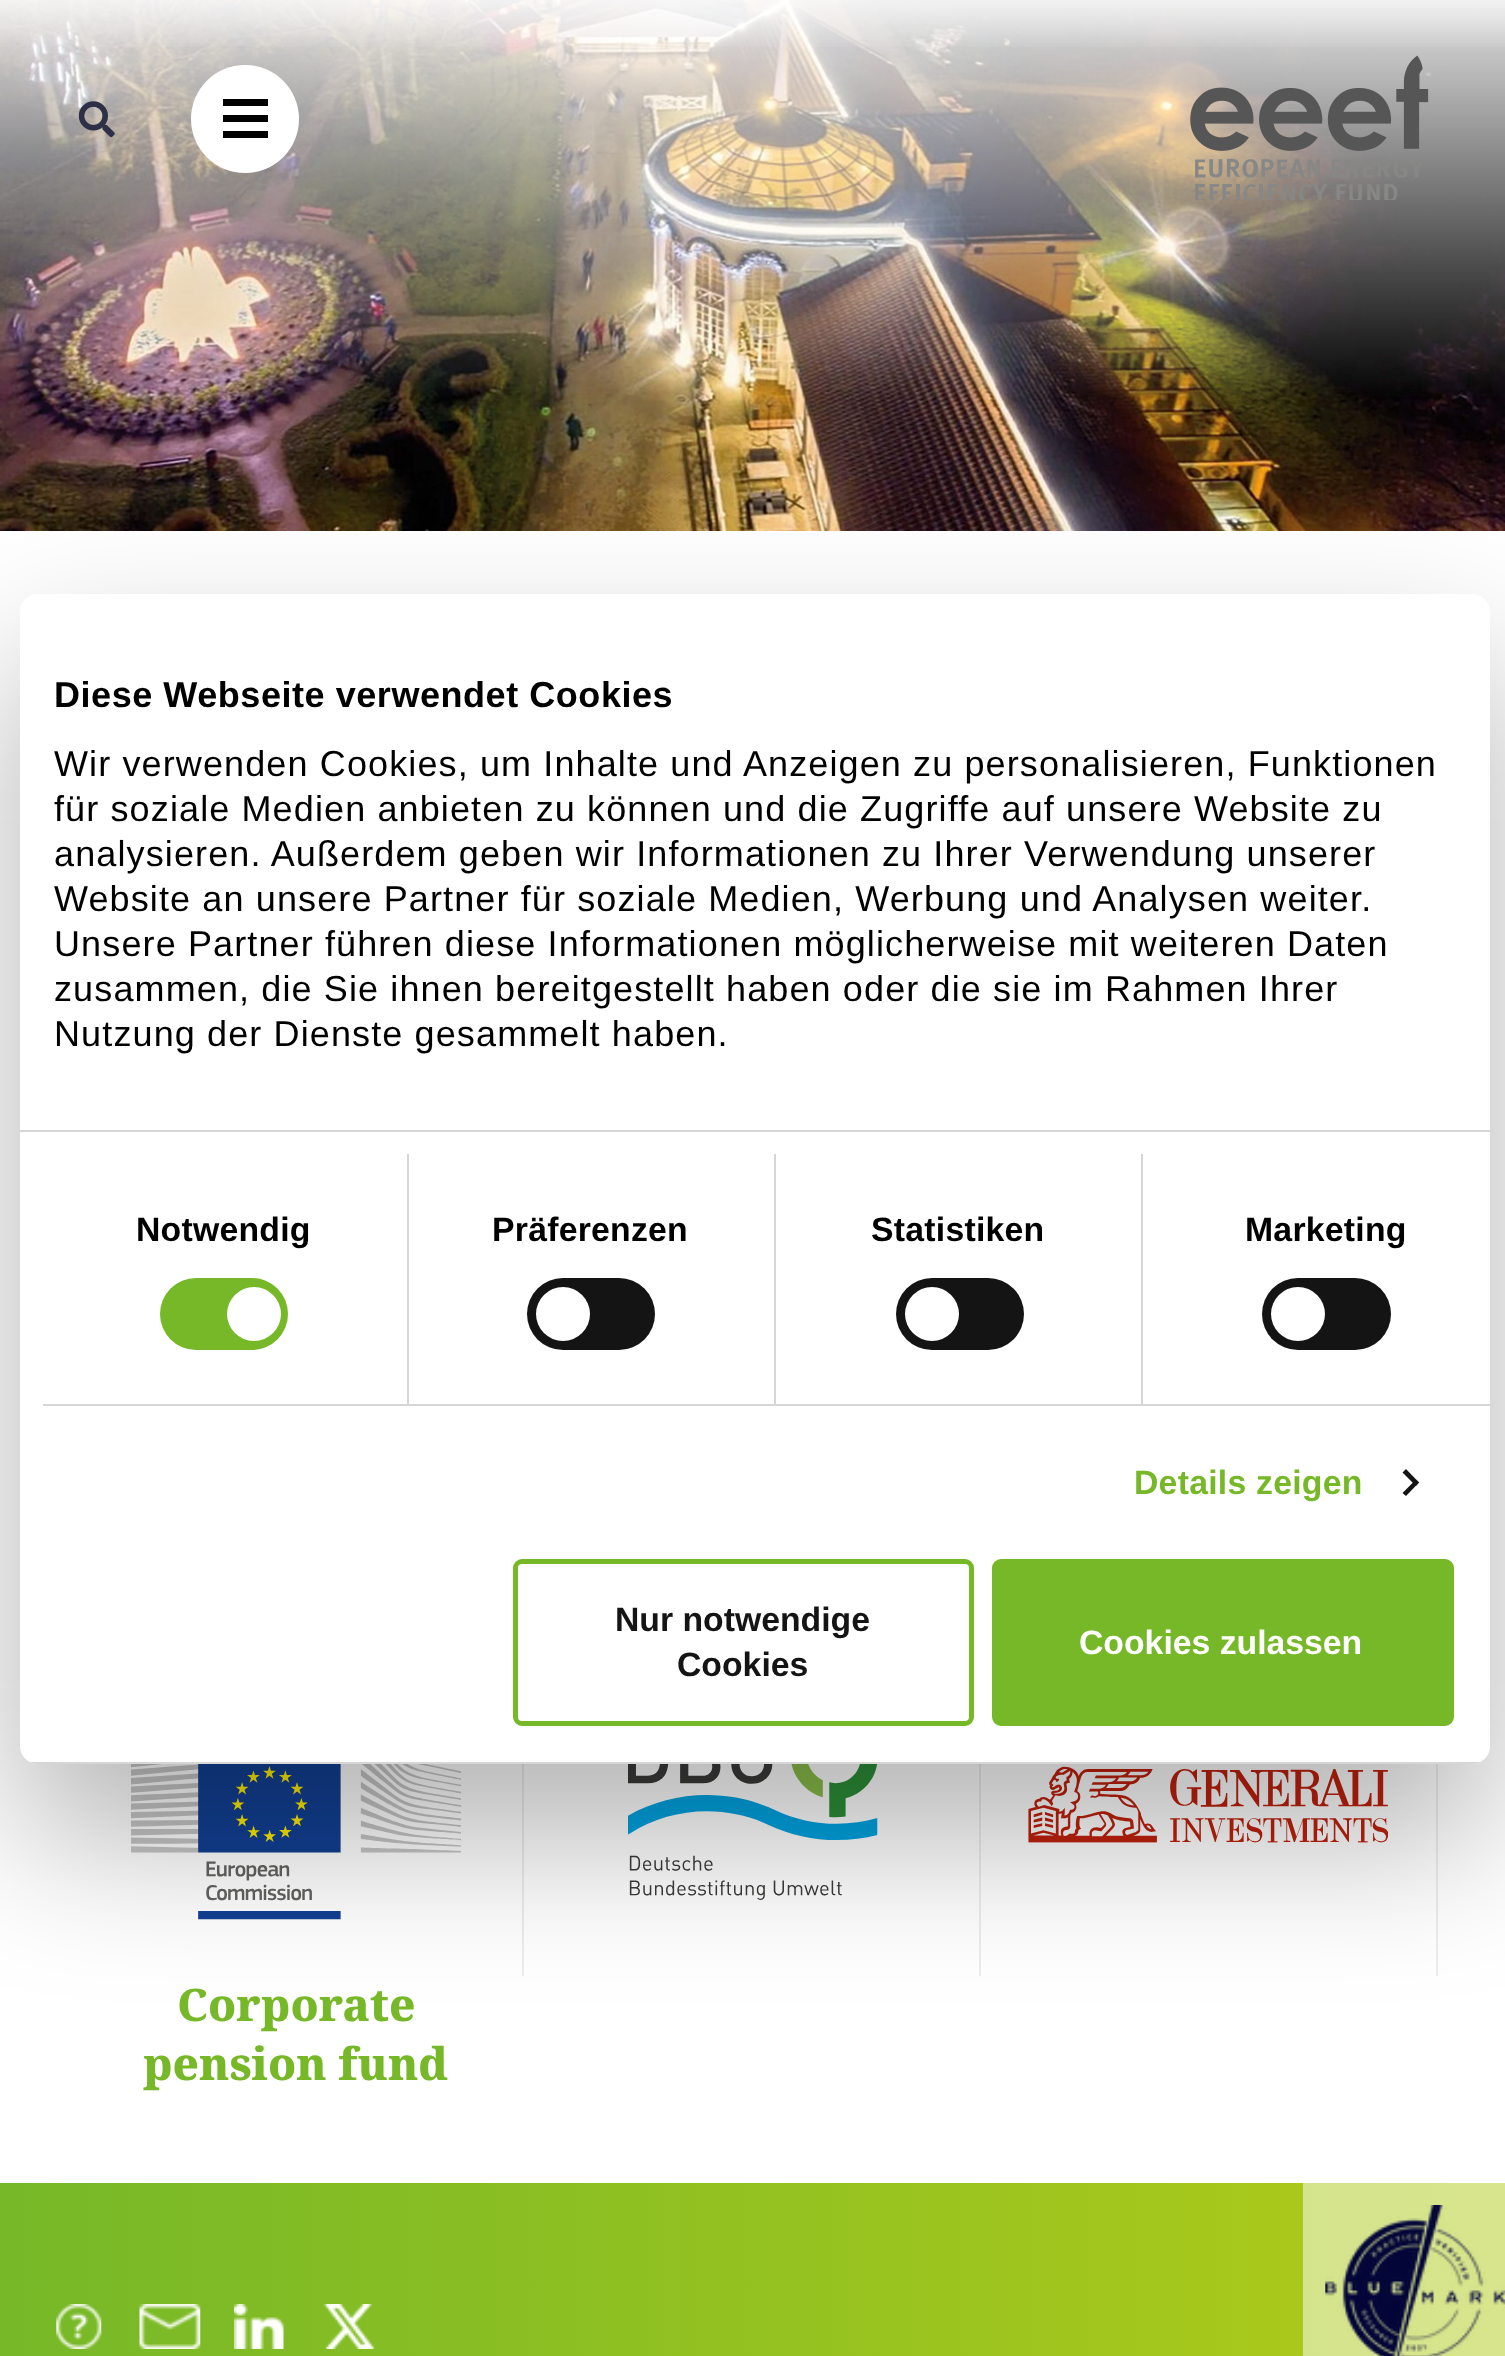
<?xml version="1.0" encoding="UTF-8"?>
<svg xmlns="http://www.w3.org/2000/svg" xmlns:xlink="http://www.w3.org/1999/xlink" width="1505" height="2356">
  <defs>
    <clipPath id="clip1"><rect x="20" y="594" width="1470" height="1170" rx="18" /></clipPath>
    <linearGradient id="g1" gradientUnits="userSpaceOnUse" x1="753" y1="-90" x2="753" y2="477"><stop offset="0" stop-color="#ffffff" /><stop offset="0.08" stop-color="#ffffff" /><stop offset="0.25" stop-color="#ffffff" stop-opacity="0" /></linearGradient>
    <linearGradient id="g2" gradientUnits="userSpaceOnUse" x1="0" y1="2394" x2="1505" y2="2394"><stop offset="0" stop-color="#76b828" /><stop offset="1" stop-color="#b1cb19" /></linearGradient>
    <linearGradient id="g3" gradientUnits="userSpaceOnUse" x1="0" y1="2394" x2="1505" y2="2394"><stop offset="0" stop-color="#bbdc94" /><stop offset="1" stop-color="#d8e58c" /></linearGradient>
  </defs>
  <rect width="100%" height="100%" fill="#ffffff" />
  <image x="0" y="0" width="1505" height="531" xlink:href="image3.png" />
  <image x="78" y="101" width="37" height="37" xlink:href="image1.png" />
  <circle cx="245" cy="119" r="54" fill="#ffffff" />
  <rect x="223" y="99" width="45" height="7" fill="#000000" />
  <rect x="223" y="115" width="45" height="7" fill="#000000" />
  <rect x="223" y="131" width="45" height="7" fill="#000000" />
  <image x="1190" y="55" width="239" height="145" xlink:href="image2.png" />
  <rect x="522" y="1764" width="2" height="212" fill="#ededed" />
  <image x="131" y="1764" width="330" height="156" xlink:href="image4.png" />
  <rect x="979" y="1764" width="2" height="212" fill="#ededed" />
  <image x="628" y="1764" width="250" height="136" xlink:href="image5.png" />
  <rect x="1436" y="1764" width="2" height="212" fill="#ededed" />
  <image x="1028" y="1766" width="360" height="77" xlink:href="image6.png" />
  <rect x="20" y="666" width="1470" height="1170" rx="18" fill="#000000" fill-opacity="0.3" filter="blur(76.5px)" />
  <rect x="20" y="594" width="1470" height="1170" rx="18" fill="#ffffff" />
  <rect x="20" y="1130" width="1470" height="2" fill="#d6d6d6" />
  <rect x="43" y="1404" width="1447" height="2" fill="#d6d6d6" />
  <rect x="407" y="1154" width="2" height="250" fill="#d6d6d6" />
  <rect x="160" y="1278" width="128" height="72" rx="36" fill="#76b828" />
  <circle cx="254" cy="1314" r="27" fill="#ffffff" />
  <rect x="774" y="1154" width="2" height="250" fill="#d6d6d6" />
  <rect x="527" y="1278" width="128" height="72" rx="36" fill="#141414" />
  <circle cx="563" cy="1314" r="27" fill="#ffffff" />
  <rect x="1141" y="1154" width="2" height="250" fill="#d6d6d6" />
  <rect x="896" y="1278" width="128" height="72" rx="36" fill="#141414" />
  <circle cx="932" cy="1314" r="27" fill="#ffffff" />
  <rect x="1262" y="1278" width="129" height="72" rx="36" fill="#141414" />
  <circle cx="1298" cy="1314" r="27" fill="#ffffff" />
  <path d="M 1406 1469 l 13 13.5 l -3 3.5 l -13.5 -13.5 z" fill="#141414" />
  <path d="M 1416 1479.5 l 3 3 l -13 13.5 l -3.5 -3 z" fill="#141414" />
  <g clip-path="url(#clip1)">
    <rect x="30" y="1762" width="1450" height="2" fill="#d6d6d6" />
  </g>
  <rect x="515.5" y="1561.5" width="456" height="162" rx="6.5" fill="none" stroke="#76b828" stroke-width="5" />
  <rect x="994.5" y="1561.5" width="457" height="162" rx="6.5" fill="#76b828" stroke="#76b828" stroke-width="5" />
  <rect width="1505" height="47" fill="url(#g1)" />
  <rect y="2183" width="1303" height="173" fill="url(#g2)" />
  <rect x="1303" y="2183" width="202" height="173" fill="url(#g3)" />
  <image x="56" y="2304" width="46" height="45" xlink:href="image7.png" />
  <image x="139" y="2304" width="62" height="45" xlink:href="image8.png" />
  <image x="234" y="2304" width="50" height="45" xlink:href="image9.png" />
  <image x="323" y="2304" width="53" height="45" xlink:href="image10.png" />
  <image x="1325" y="2205" width="180" height="151" xlink:href="image11.png" />
  <text x="54" y="707" style="font-family: Liberation Sans; font-size: 36px; font-weight: bold; letter-spacing: 0.55px; fill: #000000">Diese Webseite verwendet Cookies</text>
  <text x="54" y="776" style="font-family: Liberation Sans; font-size: 36px; letter-spacing: 1.12px; fill: #000000">Wir verwenden Cookies, um Inhalte und Anzeigen zu personalisieren, Funktionen</text>
  <text x="54" y="821" style="font-family: Liberation Sans; font-size: 36px; letter-spacing: 1.12px; fill: #000000">für soziale Medien anbieten zu können und die Zugriffe auf unsere Website zu</text>
  <text x="54" y="866" style="font-family: Liberation Sans; font-size: 36px; letter-spacing: 1.12px; fill: #000000">analysieren. Außerdem geben wir Informationen zu Ihrer Verwendung unserer</text>
  <text x="54" y="911" style="font-family: Liberation Sans; font-size: 36px; letter-spacing: 1.12px; fill: #000000">Website an unsere Partner für soziale Medien, Werbung und Analysen weiter.</text>
  <text x="54" y="956" style="font-family: Liberation Sans; font-size: 36px; letter-spacing: 1.12px; fill: #000000">Unsere Partner führen diese Informationen möglicherweise mit weiteren Daten</text>
  <text x="54" y="1001" style="font-family: Liberation Sans; font-size: 36px; letter-spacing: 1.12px; fill: #000000">zusammen, die Sie ihnen bereitgestellt haben oder die sie im Rahmen Ihrer</text>
  <text x="54" y="1046" style="font-family: Liberation Sans; font-size: 36px; letter-spacing: 1.12px; fill: #000000">Nutzung der Dienste gesammelt haben.</text>
  <text x="136" y="1241" style="font-family: Liberation Sans; font-size: 33.75px; font-weight: bold; letter-spacing: 0.25px; fill: #000000">Notwendig</text>
  <text x="492" y="1241" style="font-family: Liberation Sans; font-size: 33.75px; font-weight: bold; letter-spacing: 0.25px; fill: #000000">Präferenzen</text>
  <text x="871" y="1241" style="font-family: Liberation Sans; font-size: 33.75px; font-weight: bold; letter-spacing: 0.25px; fill: #000000">Statistiken</text>
  <text x="1245" y="1241" style="font-family: Liberation Sans; font-size: 33.75px; font-weight: bold; letter-spacing: 0.25px; fill: #000000">Marketing</text>
  <text x="1134" y="1494" style="font-family: Liberation Sans; font-size: 33.75px; font-weight: bold; letter-spacing: 0.25px; fill: #76b828">Details zeigen</text>
  <text x="615" y="1631" style="font-family: Liberation Sans; font-size: 33.75px; font-weight: bold; fill: #141414">Nur notwendige</text>
  <text x="677" y="1676" style="font-family: Liberation Sans; font-size: 33.75px; font-weight: bold; fill: #141414">Cookies</text>
  <text x="1079" y="1654" style="font-family: Liberation Sans; font-size: 33.75px; font-weight: bold; fill: #ffffff">Cookies zulassen</text>
  <text x="177" y="2021" style="font-family: Noto Serif; font-size: 45px; font-weight: 800; fill: #76b828">Corporate</text>
  <text x="143" y="2080" style="font-family: Noto Serif; font-size: 45px; font-weight: 800; fill: #76b828">pension fund</text>
</svg>
